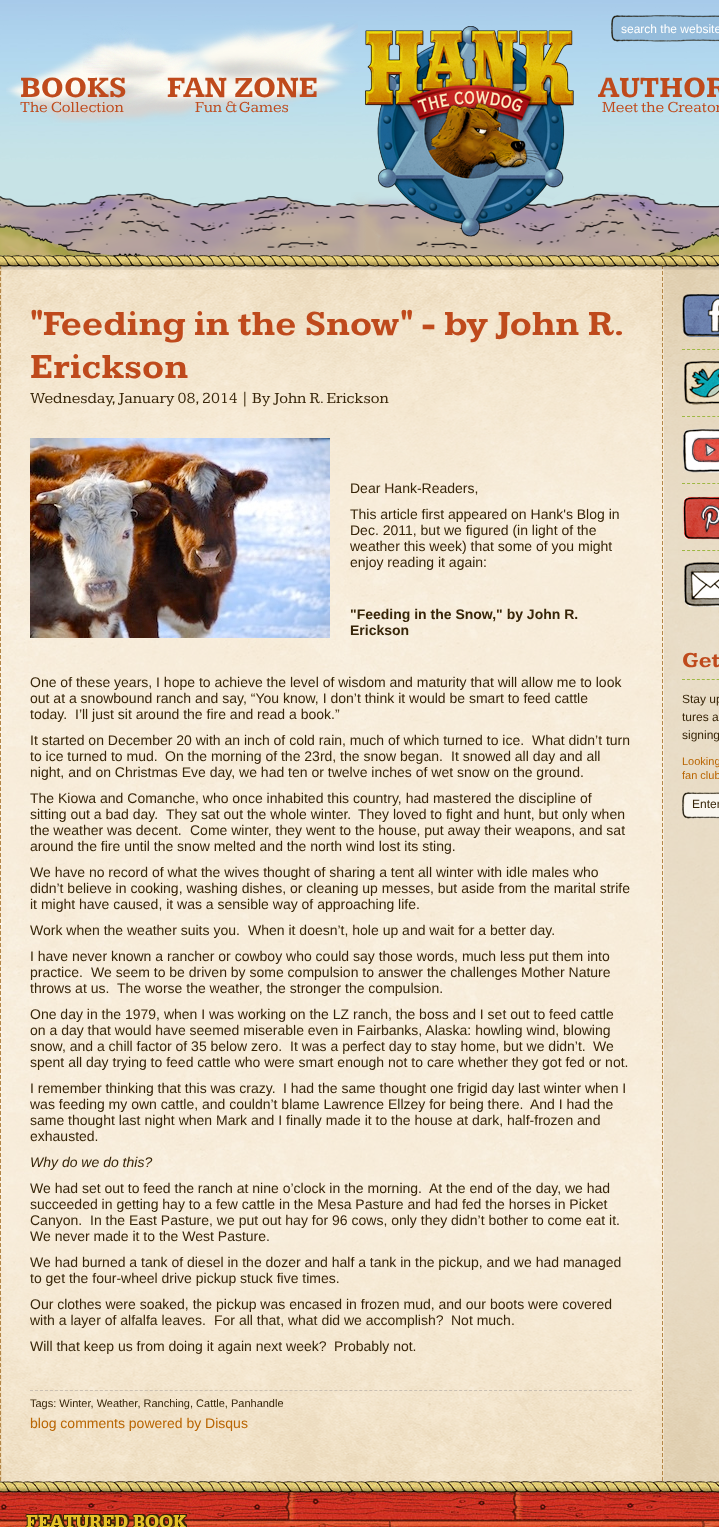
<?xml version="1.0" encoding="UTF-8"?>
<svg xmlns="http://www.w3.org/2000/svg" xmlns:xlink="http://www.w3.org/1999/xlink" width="719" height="1527">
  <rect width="100%" height="100%" fill="#ffffff" />
  <image x="0" y="0" width="719" height="257" xlink:href="image1.png" />
  <image x="0" y="192" width="719" height="65" xlink:href="image2.png" />
  <image x="6" y="38" width="339" height="85" xlink:href="image4.png" />
  <image x="83" y="21" width="275" height="72" xlink:href="image3.png" />
  <image x="0" y="225" width="192" height="32" xlink:href="image5.png" />
  <image x="655" y="234" width="64" height="23" xlink:href="image6.png" />
  <image x="365" y="26" width="209" height="211" xlink:href="image7.png" />
  <image x="611" y="15" width="108" height="27" xlink:href="image8.png" />
  <image x="0" y="265" width="719" height="1216" xlink:href="image10.png" />
  <image x="0" y="265" width="719" height="227" xlink:href="image12.png" />
  <image x="0" y="1242" width="719" height="239" xlink:href="image11.png" />
  <image x="0" y="265" width="719" height="1216" xlink:href="image13.png" />
  <image x="0" y="255" width="719" height="15" xlink:href="image9.png" />
  <image x="30" y="438" width="300" height="200" xlink:href="image14.png" />
  <path d="M 30 1390.5 h 602" fill="none" stroke="#cabfb1" stroke-dasharray="3 1.99" />
  <path d="M 682 349.5 h 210" fill="none" stroke="#9eb843" stroke-dasharray="3 2.05" />
  <image x="682" y="294" width="37" height="44" xlink:href="image15.png" />
  <path d="M 682 416.5 h 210" fill="none" stroke="#9eb843" stroke-dasharray="3 2.05" />
  <image x="684" y="361" width="35" height="44" xlink:href="image16.png" />
  <path d="M 682 483.5 h 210" fill="none" stroke="#9eb843" stroke-dasharray="3 2.05" />
  <image x="683" y="428" width="36" height="45" xlink:href="image17.png" />
  <path d="M 682 550.5 h 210" fill="none" stroke="#9eb843" stroke-dasharray="3 2.05" />
  <image x="682" y="496" width="37" height="44" xlink:href="image18.png" />
  <image x="684" y="562" width="35" height="45" xlink:href="image19.png" />
  <path d="M 682 679.5 h 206" fill="none" stroke="#9eb843" stroke-dasharray="3 1.95" />
  <image x="682" y="792" width="37" height="27" xlink:href="image20.png" />
  <image x="0" y="1481" width="719" height="46" xlink:href="image21.png" />
  <image x="25" y="1514" width="162" height="13" xlink:href="image22.png" />
  <text x="621" y="33" style="font-family: Liberation Sans; font-size: 12px; fill: #ffffff">search the website</text>
  <text x="20" y="97" style="font-family: Kameron; font-size: 30px; font-weight: bold; fill: #bf4a1c">BOOKS</text>
  <text x="20" y="112" style="font-family: Kameron; font-size: 16px; fill: #bf4a1c">The Collection</text>
  <text x="167" y="97" style="font-family: Kameron; font-size: 30px; font-weight: bold; fill: #bf4a1c">FAN ZONE</text>
  <text x="195" y="112" style="font-family: Kameron; font-size: 16px; fill: #bf4a1c">Fun &amp; Games</text>
  <text x="598" y="97" style="font-family: Kameron; font-size: 30px; font-weight: bold; fill: #bf4a1c">AUTHOR</text>
  <text x="602" y="112" style="font-family: Kameron; font-size: 16px; fill: #bf4a1c">Meet the Creator</text>
  <text x="30" y="335" word-spacing="-0.5" style="font-family: Kameron; font-size: 36px; font-weight: bold; fill: #bf4a1c">"Feeding in the Snow" - by John R.</text>
  <text x="30" y="378" style="font-family: Kameron; font-size: 36px; font-weight: bold; fill: #bf4a1c">Erickson</text>
  <text x="30" y="403" style="font-family: Kameron; font-size: 16px; fill: #372508">Wednesday, January 08, 2014 | By John R. Erickson</text>
  <text x="350" y="493" style="font-family: Liberation Sans; font-size: 14px; fill: #372508">Dear Hank-Readers,</text>
  <text x="350" y="519" style="font-family: Liberation Sans; font-size: 14px; fill: #372508">This article first appeared on Hank's Blog in</text>
  <text x="350" y="535" style="font-family: Liberation Sans; font-size: 14px; fill: #372508">Dec. 2011, but we figured (in light of the</text>
  <text x="350" y="551" style="font-family: Liberation Sans; font-size: 14px; fill: #372508">weather this week) that some of you might</text>
  <text x="350" y="567" style="font-family: Liberation Sans; font-size: 14px; fill: #372508">enjoy reading it again:</text>
  <text x="350" y="619" style="font-family: Liberation Sans; font-size: 14px; font-weight: bold; fill: #372508">"Feeding in the Snow," by John R.</text>
  <text x="350" y="635" style="font-family: Liberation Sans; font-size: 14px; font-weight: bold; fill: #372508">Erickson</text>
  <text x="30" y="687" style="font-family: Liberation Sans; font-size: 14px; fill: #372508">One of these years, I hope to achieve the level of wisdom and maturity that will allow me to look</text>
  <text x="30" y="703" style="font-family: Liberation Sans; font-size: 14px; fill: #372508">out at a snowbound ranch and say, “You know, I don’t think it would be smart to feed cattle</text>
  <text x="30" y="719" style="font-family: Liberation Sans; font-size: 14px; fill: #372508">today.</text>
  <text x="75" y="719" style="font-family: Liberation Sans; font-size: 14px; fill: #372508">I’ll just sit around the fire and read a book.”</text>
  <text x="30" y="745" style="font-family: Liberation Sans; font-size: 14px; fill: #372508">It started on December 20 with an inch of cold rain, much of which turned to ice.</text>
  <text x="532" y="745" style="font-family: Liberation Sans; font-size: 14px; fill: #372508">What didn’t turn</text>
  <text x="30" y="761" style="font-family: Liberation Sans; font-size: 14px; fill: #372508">to ice turned to mud.</text>
  <text x="165" y="761" style="font-family: Liberation Sans; font-size: 14px; fill: #372508">On the morning of the 23rd, the snow began.</text>
  <text x="451" y="761" style="font-family: Liberation Sans; font-size: 14px; fill: #372508">It snowed all day and all</text>
  <text x="30" y="777" style="font-family: Liberation Sans; font-size: 14px; fill: #372508">night, and on Christmas Eve day, we had ten or twelve inches of wet snow on the ground.</text>
  <text x="30" y="803" style="font-family: Liberation Sans; font-size: 14px; fill: #372508">The Kiowa and Comanche, who once inhabited this country, had mastered the discipline of</text>
  <text x="30" y="819" style="font-family: Liberation Sans; font-size: 14px; fill: #372508">sitting out a bad day.</text>
  <text x="166" y="819" style="font-family: Liberation Sans; font-size: 14px; fill: #372508">They sat out the whole winter.</text>
  <text x="358" y="819" style="font-family: Liberation Sans; font-size: 14px; fill: #372508">They loved to fight and hunt, but only when</text>
  <text x="30" y="835" style="font-family: Liberation Sans; font-size: 14px; fill: #372508">the weather was decent.</text>
  <text x="190" y="835" style="font-family: Liberation Sans; font-size: 14px; fill: #372508">Come winter, they went to the house, put away their weapons, and sat</text>
  <text x="30" y="851" style="font-family: Liberation Sans; font-size: 14px; fill: #372508">around the fire until the snow melted and the north wind lost its sting.</text>
  <text x="30" y="877" style="font-family: Liberation Sans; font-size: 14px; fill: #372508">We have no record of what the wives thought of sharing a tent all winter with idle males who</text>
  <text x="30" y="893" style="font-family: Liberation Sans; font-size: 14px; fill: #372508">didn’t believe in cooking, washing dishes, or cleaning up messes, but aside from the marital strife</text>
  <text x="30" y="909" style="font-family: Liberation Sans; font-size: 14px; fill: #372508">it might have caused, it was a sensible way of approaching life.</text>
  <text x="30" y="935" style="font-family: Liberation Sans; font-size: 14px; fill: #372508">Work when the weather suits you.</text>
  <text x="248" y="935" style="font-family: Liberation Sans; font-size: 14px; fill: #372508">When it doesn’t, hole up and wait for a better day.</text>
  <text x="30" y="961" style="font-family: Liberation Sans; font-size: 14px; fill: #372508">I have never known a rancher or cowboy who could say those words, much less put them into</text>
  <text x="30" y="977" style="font-family: Liberation Sans; font-size: 14px; fill: #372508">practice.</text>
  <text x="91" y="977" style="font-family: Liberation Sans; font-size: 14px; fill: #372508">We seem to be driven by some compulsion to answer the challenges Mother Nature</text>
  <text x="30" y="993" style="font-family: Liberation Sans; font-size: 14px; fill: #372508">throws at us.</text>
  <text x="117" y="993" style="font-family: Liberation Sans; font-size: 14px; fill: #372508">The worse the weather, the stronger the compulsion.</text>
  <text x="30" y="1019" style="font-family: Liberation Sans; font-size: 14px; fill: #372508">One day in the 1979, when I was working on the LZ ranch, the boss and I set out to feed cattle</text>
  <text x="30" y="1035" style="font-family: Liberation Sans; font-size: 14px; fill: #372508">on a day that would have seemed miserable even in Fairbanks, Alaska: howling wind, blowing</text>
  <text x="30" y="1051" style="font-family: Liberation Sans; font-size: 14px; fill: #372508">snow, and a chill factor of 35 below zero.</text>
  <text x="290" y="1051" style="font-family: Liberation Sans; font-size: 14px; fill: #372508">It was a perfect day to stay home, but we didn’t.</text>
  <text x="593" y="1051" style="font-family: Liberation Sans; font-size: 14px; fill: #372508">We</text>
  <text x="30" y="1067" style="font-family: Liberation Sans; font-size: 14px; fill: #372508">spent all day trying to feed cattle who were smart enough not to care whether they got fed or not.</text>
  <text x="30" y="1093" style="font-family: Liberation Sans; font-size: 14px; fill: #372508">I remember thinking that this was crazy.</text>
  <text x="283" y="1093" style="font-family: Liberation Sans; font-size: 14px; fill: #372508">I had the same thought one frigid day last winter when I</text>
  <text x="30" y="1109" style="font-family: Liberation Sans; font-size: 14px; fill: #372508">was feeding my own cattle, and couldn’t blame Lawrence Ellzey for being there.</text>
  <text x="530" y="1109" style="font-family: Liberation Sans; font-size: 14px; fill: #372508">And I had the</text>
  <text x="30" y="1125" style="font-family: Liberation Sans; font-size: 14px; fill: #372508">same thought last night when Mark and I finally made it to the house at dark, half-frozen and</text>
  <text x="30" y="1141" style="font-family: Liberation Sans; font-size: 14px; fill: #372508">exhausted.</text>
  <text x="30" y="1167" style="font-family: Liberation Sans; font-size: 14px; font-style: italic; fill: #372508">Why do we do this?</text>
  <text x="30" y="1193" style="font-family: Liberation Sans; font-size: 14px; fill: #372508">We had set out to feed the ranch at nine o’clock in the morning.</text>
  <text x="429" y="1193" style="font-family: Liberation Sans; font-size: 14px; fill: #372508">At the end of the day, we had</text>
  <text x="30" y="1209" style="font-family: Liberation Sans; font-size: 14px; fill: #372508">succeeded in getting hay to a few cattle in the Mesa Pasture and had fed the horses in Picket</text>
  <text x="30" y="1225" style="font-family: Liberation Sans; font-size: 14px; fill: #372508">Canyon.</text>
  <text x="90" y="1225" style="font-family: Liberation Sans; font-size: 14px; fill: #372508">In the East Pasture, we put out hay for 96 cows, only they didn’t bother to come eat it.</text>
  <text x="30" y="1241" style="font-family: Liberation Sans; font-size: 14px; fill: #372508">We never made it to the West Pasture.</text>
  <text x="30" y="1267" style="font-family: Liberation Sans; font-size: 14px; fill: #372508">We had burned a tank of diesel in the dozer and half a tank in the pickup, and we had managed</text>
  <text x="30" y="1283" style="font-family: Liberation Sans; font-size: 14px; fill: #372508">to get the four-wheel drive pickup stuck five times.</text>
  <text x="30" y="1309" style="font-family: Liberation Sans; font-size: 14px; fill: #372508">Our clothes were soaked, the pickup was encased in frozen mud, and our boots were covered</text>
  <text x="30" y="1325" style="font-family: Liberation Sans; font-size: 14px; fill: #372508">with a layer of alfalfa leaves.</text>
  <text x="214" y="1325" style="font-family: Liberation Sans; font-size: 14px; fill: #372508">For all that, what did we accomplish?</text>
  <text x="451" y="1325" style="font-family: Liberation Sans; font-size: 14px; fill: #372508">Not much.</text>
  <text x="30" y="1351" style="font-family: Liberation Sans; font-size: 14px; fill: #372508">Will that keep us from doing it again next week?</text>
  <text x="334" y="1351" style="font-family: Liberation Sans; font-size: 14px; fill: #372508">Probably not.</text>
  <text x="30" y="1407" style="font-family: Liberation Sans; font-size: 11px; fill: #372508">Tags: Winter, Weather, Ranching, Cattle, Panhandle</text>
  <text x="30" y="1428" style="font-family: Liberation Sans; font-size: 14px; fill: #b96502">blog comments powered by Disqus</text>
  <text x="682" y="667" style="font-family: Kameron; font-size: 22px; font-weight: bold; fill: #bf4a1c">Get</text>
  <text x="682" y="703" style="font-family: Liberation Sans; font-size: 12px; fill: #372508">Stay up</text>
  <text x="682" y="721" style="font-family: Liberation Sans; font-size: 12px; fill: #372508">tures a</text>
  <text x="682" y="739" style="font-family: Liberation Sans; font-size: 12px; fill: #372508">signing</text>
  <text x="682" y="765" style="font-family: Liberation Sans; font-size: 11px; fill: #b96502">Looking</text>
  <text x="682" y="779" style="font-family: Liberation Sans; font-size: 11px; fill: #b96502">fan club</text>
  <text x="692" y="808" style="font-family: Liberation Sans; font-size: 12px; fill: #372508">Enter</text>
</svg>
